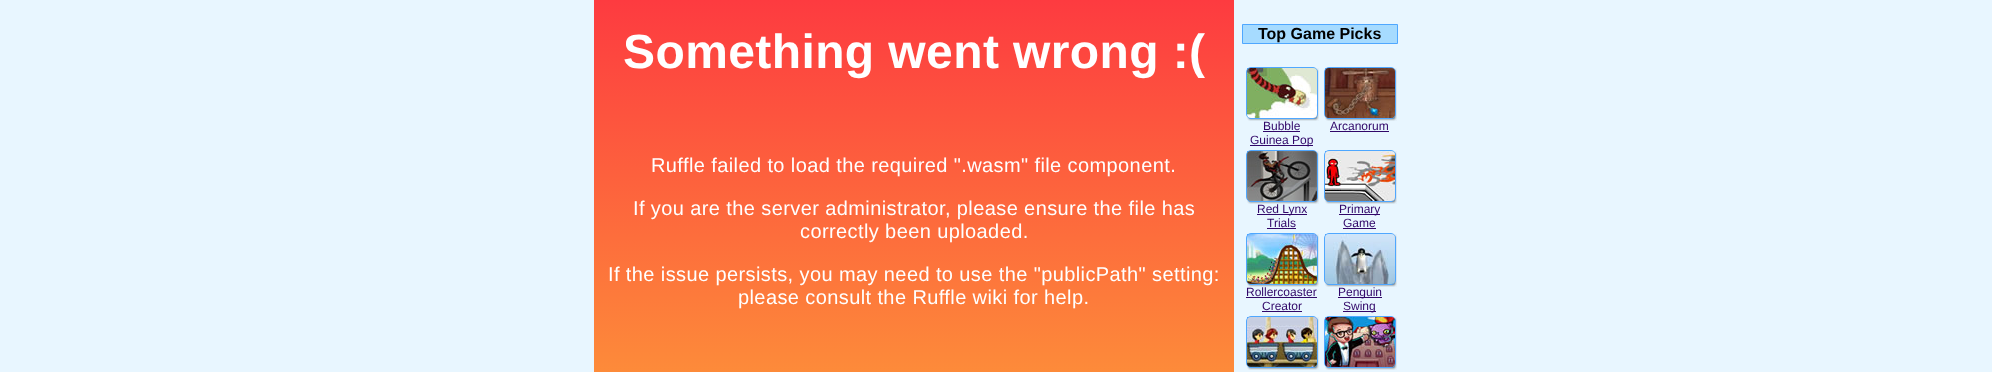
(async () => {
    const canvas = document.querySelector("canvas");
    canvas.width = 1992;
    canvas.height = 372;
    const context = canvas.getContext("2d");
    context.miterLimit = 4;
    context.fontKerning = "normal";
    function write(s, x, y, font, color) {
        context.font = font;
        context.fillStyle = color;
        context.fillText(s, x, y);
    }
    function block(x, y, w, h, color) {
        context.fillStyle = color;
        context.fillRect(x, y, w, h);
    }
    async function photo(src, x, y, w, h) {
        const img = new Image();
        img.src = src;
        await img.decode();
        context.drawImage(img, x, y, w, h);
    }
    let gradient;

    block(0, 0, 1992, 372, "rgb(232, 246, 255)");
    gradient = context.createLinearGradient(914, -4, 914, 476);
    gradient.addColorStop(0, "rgb(253, 58, 64)");
    gradient.addColorStop(1, "rgb(253, 161, 56)");
    context.fillStyle = gradient;
    context.fillRect(594, 0, 640, 372);
    context.letterSpacing = "0.4px";
    write("Something went wrong :(", 623, 68, "bold 48px Liberation Sans", "rgb(255, 255, 255)");
    write("Ruffle failed to load the required \".wasm\" file component.", 651, 172, "20px Liberation Sans", "rgb(255, 255, 255)");
    write("If you are the server administrator, please ensure the file has", 633, 215, "20px Liberation Sans", "rgb(255, 255, 255)");
    write("correctly been uploaded.", 800, 238, "20px Liberation Sans", "rgb(255, 255, 255)");
    write("If the issue persists, you may need to use the \"publicPath\" setting:", 608, 281, "20px Liberation Sans", "rgb(255, 255, 255)");
    write("please consult the Ruffle wiki for help.", 738, 304, "20px Liberation Sans", "rgb(255, 255, 255)");
    context.fillStyle = "rgb(166, 219, 255)";
    context.beginPath();
    context.rect(1242.5, 24.5, 155, 19);
    context.fill();
    context.strokeStyle = "rgb(79, 167, 255)";
    context.stroke();
    context.letterSpacing = "0px";
    write("Top Game Picks", 1258, 39, "bold 16px Liberation Sans", "rgb(0, 0, 0)");
    await photo("media/1.png", 1247, 68, 72, 53);
    context.beginPath();
    context.roundRect(1246.5, 67.5, 71, 51, 4.5);
    context.stroke();
    await photo("media/2.png", 1247, 68, 70, 50);
    write("Bubble", 1263, 130, "12px Liberation Sans", "rgb(49, 7, 105)");
    block(1263, 131, 37, 1, "rgb(49, 7, 105)");
    block(1250, 145, 63, 1, "rgb(49, 7, 105)");
    write("Guinea Pop", 1250, 144, "12px Liberation Sans", "rgb(49, 7, 105)");
    await photo("media/1.png", 1325, 68, 72, 53);
    context.beginPath();
    context.roundRect(1324.5, 67.5, 71, 51, 4.5);
    context.stroke();
    await photo("media/3.png", 1325, 68, 70, 50);
    write("Arcanorum", 1330, 130, "12px Liberation Sans", "rgb(49, 7, 105)");
    block(1330, 131, 59, 1, "rgb(49, 7, 105)");
    await photo("media/1.png", 1247, 151, 72, 53);
    context.beginPath();
    context.roundRect(1246.5, 150.5, 71, 51, 4.5);
    context.stroke();
    await photo("media/4.png", 1247, 151, 70, 50);
    block(1257, 214, 50, 1, "rgb(49, 7, 105)");
    write("Red Lynx", 1257, 213, "12px Liberation Sans", "rgb(49, 7, 105)");
    write("Trials", 1267, 227, "12px Liberation Sans", "rgb(49, 7, 105)");
    block(1267, 228, 29, 1, "rgb(49, 7, 105)");
    await photo("media/1.png", 1325, 151, 72, 53);
    context.beginPath();
    context.roundRect(1324.5, 150.5, 71, 51, 4.5);
    context.stroke();
    await photo("media/5.png", 1325, 151, 70, 50);
    block(1339, 214, 41, 1, "rgb(49, 7, 105)");
    write("Primary", 1339, 213, "12px Liberation Sans", "rgb(49, 7, 105)");
    write("Game", 1343, 227, "12px Liberation Sans", "rgb(49, 7, 105)");
    block(1343, 228, 33, 1, "rgb(49, 7, 105)");
    await photo("media/1.png", 1247, 234, 72, 53);
    context.beginPath();
    context.roundRect(1246.5, 233.5, 71, 51, 4.5);
    context.stroke();
    await photo("media/6.png", 1247, 234, 70, 50);
    write("Rollercoaster", 1246, 296, "12px Liberation Sans", "rgb(49, 7, 105)");
    block(1246, 297, 71, 1, "rgb(49, 7, 105)");
    write("Creator", 1262, 310, "12px Liberation Sans", "rgb(49, 7, 105)");
    block(1262, 311, 40, 1, "rgb(49, 7, 105)");
    await photo("media/1.png", 1325, 234, 72, 53);
    context.beginPath();
    context.roundRect(1324.5, 233.5, 71, 51, 4.5);
    context.stroke();
    await photo("media/7.png", 1325, 234, 70, 50);
    block(1338, 297, 44, 1, "rgb(49, 7, 105)");
    write("Penguin", 1338, 296, "12px Liberation Sans", "rgb(49, 7, 105)");
    block(1343, 311, 33, 1, "rgb(49, 7, 105)");
    write("Swing", 1343, 310, "12px Liberation Sans", "rgb(49, 7, 105)");
    await photo("media/1.png", 1247, 317, 72, 53);
    context.beginPath();
    context.roundRect(1246.5, 316.5, 71, 51, 4.5);
    context.stroke();
    await photo("media/8.png", 1247, 317, 70, 50);
    await photo("media/1.png", 1325, 317, 72, 53);
    context.beginPath();
    context.roundRect(1324.5, 316.5, 71, 51, 4.5);
    context.stroke();
    await photo("media/9.png", 1325, 317, 70, 50);
})();
